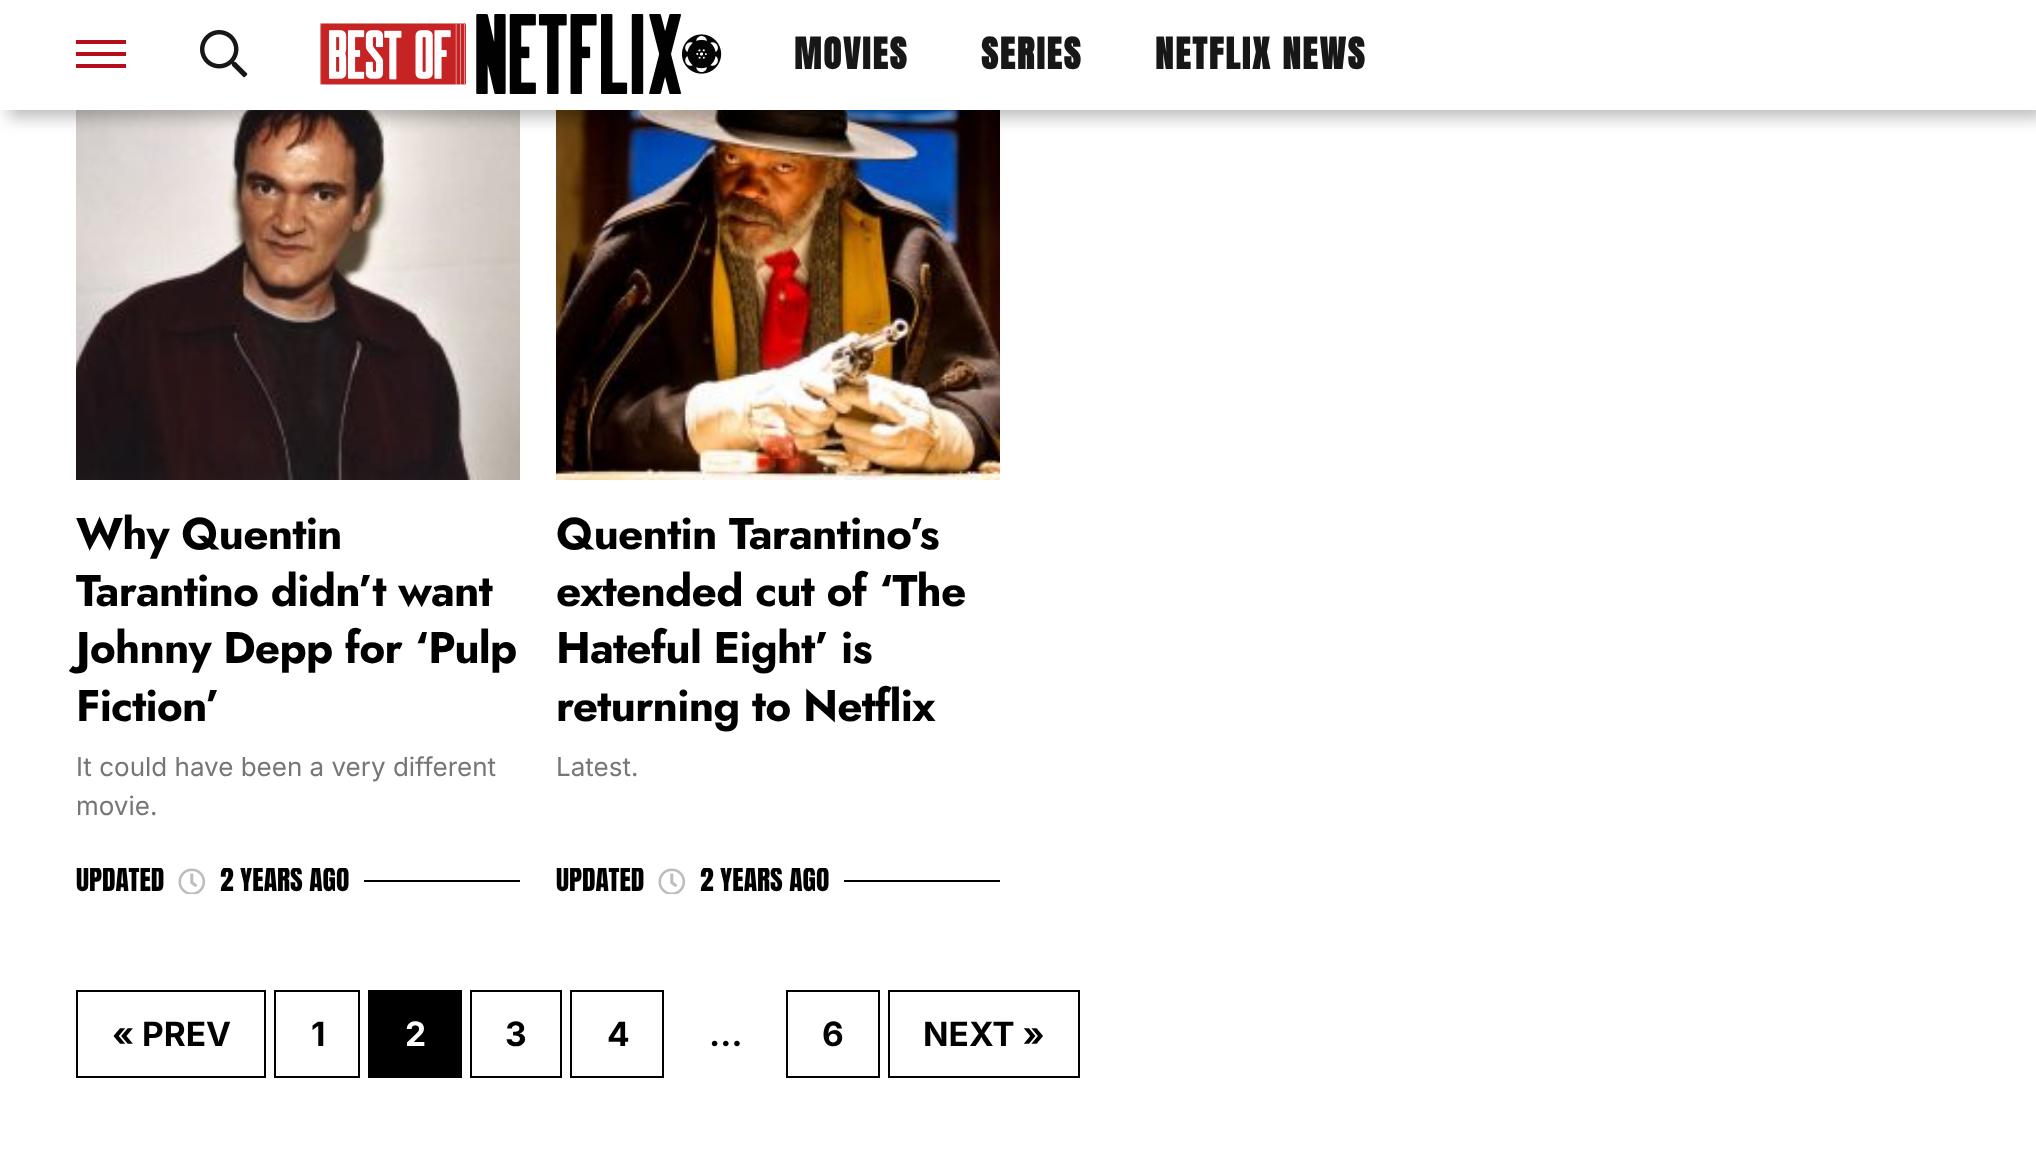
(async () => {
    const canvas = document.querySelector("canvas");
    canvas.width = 2036;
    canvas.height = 1154;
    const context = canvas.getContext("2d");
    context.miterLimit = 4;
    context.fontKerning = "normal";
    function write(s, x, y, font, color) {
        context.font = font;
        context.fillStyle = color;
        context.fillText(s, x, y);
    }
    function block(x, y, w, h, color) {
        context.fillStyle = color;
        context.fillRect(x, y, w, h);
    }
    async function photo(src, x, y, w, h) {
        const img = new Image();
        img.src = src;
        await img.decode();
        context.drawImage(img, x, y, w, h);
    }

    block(0, 0, 2036, 1154, "rgb(255, 255, 255)");
    await photo("media/3.png", 76, 110, 444, 370);
    await photo("media/5.png", 556, 110, 444, 370);
    context.fillStyle = "rgba(0, 0, 0, 0.25)";
    context.filter = "blur(8px)";
    context.beginPath();
    context.rect(8, 8, 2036, 110);
    context.fill();
    context.filter = "none";
    block(0, 0, 2036, 110, "rgb(255, 255, 255)");
    block(76, 40, 50, 4, "rgb(181, 13, 26)");
    block(76, 52, 50, 4, "rgb(181, 13, 26)");
    block(76, 64, 50, 4, "rgb(181, 13, 26)");
    await photo("media/1.png", 200, 30, 48, 48);
    await photo("media/2.png", 320, 14, 402, 80);
    context.letterSpacing = "2px";
    write("MOVIES", 794, 69, "bold 36.5px Anton", "rgb(23, 23, 23)");
    write("SERIES", 981, 69, "bold 36.5px Anton", "rgb(23, 23, 23)");
    write("NETFLIX NEWS", 1155, 69, "bold 36.5px Anton", "rgb(23, 23, 23)");
    context.letterSpacing = "-0.8px";
    write("Why Quentin", 76, 549, "bold 44.25px Jost", "rgb(0, 0, 0)");
    write("Tarantino didn’t want", 76, 606, "bold 44.25px Jost", "rgb(0, 0, 0)");
    write("Johnny Depp for ‘Pulp", 76, 663, "bold 44.25px Jost", "rgb(0, 0, 0)");
    write("Fiction’", 76, 721, "bold 44.25px Jost", "rgb(0, 0, 0)");
    context.letterSpacing = "0px";
    write("It could have been a very different", 76, 776, "26px Inter", "rgb(118, 118, 118)");
    write("movie.", 76, 815, "26px Inter", "rgb(118, 118, 118)");
    context.save();
    context.beginPath();
    context.rect(76, 868, 444, 26);
    context.clip();
    write("UPDATED", 76, 891, "27.5px Anton", "rgb(0, 0, 0)");
    context.restore();
    await photo("media/4.png", 178, 868, 28, 26);
    context.save();
    context.beginPath();
    context.rect(220, 868, 130, 26);
    context.clip();
    write("2 YEARS AGO", 220, 891, "27.5px Anton", "rgb(0, 0, 0)");
    context.restore();
    block(364, 880, 156, 2, "rgb(0, 0, 0)");
    context.letterSpacing = "-0.8px";
    write("Quentin Tarantino’s", 556, 549, "bold 44.25px Jost", "rgb(0, 0, 0)");
    write("extended cut of ‘The", 556, 606, "bold 44.25px Jost", "rgb(0, 0, 0)");
    write("Hateful Eight’ is", 556, 663, "bold 44.25px Jost", "rgb(0, 0, 0)");
    write("returning to Netflix", 556, 721, "bold 44.25px Jost", "rgb(0, 0, 0)");
    context.letterSpacing = "0px";
    write("Latest.", 556, 776, "26px Inter", "rgb(118, 118, 118)");
    context.save();
    context.beginPath();
    context.rect(556, 868, 444, 26);
    context.clip();
    write("UPDATED", 556, 891, "27.5px Anton", "rgb(0, 0, 0)");
    context.restore();
    await photo("media/4.png", 658, 868, 28, 26);
    context.save();
    context.beginPath();
    context.rect(700, 868, 130, 26);
    context.clip();
    write("2 YEARS AGO", 700, 891, "27.5px Anton", "rgb(0, 0, 0)");
    context.restore();
    block(844, 880, 156, 2, "rgb(0, 0, 0)");
    context.strokeStyle = "rgb(0, 0, 0)";
    context.lineWidth = 2;
    context.strokeRect(77, 991, 188, 86);
    write("« PREV", 112, 1046, "bold 33.5px Inter", "rgb(0, 0, 0)");
    context.strokeRect(275, 991, 84, 86);
    write("1", 311, 1046, "bold 33.5px Inter", "rgb(0, 0, 0)");
    block(368, 990, 94, 88, "rgb(0, 0, 0)");
    write("2", 405, 1046, "bold 33.5px Inter", "rgb(255, 255, 255)");
    context.strokeRect(471, 991, 90, 86);
    write("3", 505, 1046, "bold 33.5px Inter", "rgb(0, 0, 0)");
    context.strokeRect(571, 991, 92, 86);
    write("4", 607, 1046, "bold 33.5px Inter", "rgb(0, 0, 0)");
    write("…", 709, 1046, "bold 33.5px Inter", "rgb(0, 0, 0)");
    context.strokeRect(787, 991, 92, 86);
    write("6", 822, 1046, "bold 33.5px Inter", "rgb(0, 0, 0)");
    context.strokeRect(889, 991, 190, 86);
    write("NEXT »", 923, 1046, "bold 33.5px Inter", "rgb(0, 0, 0)");
})();
